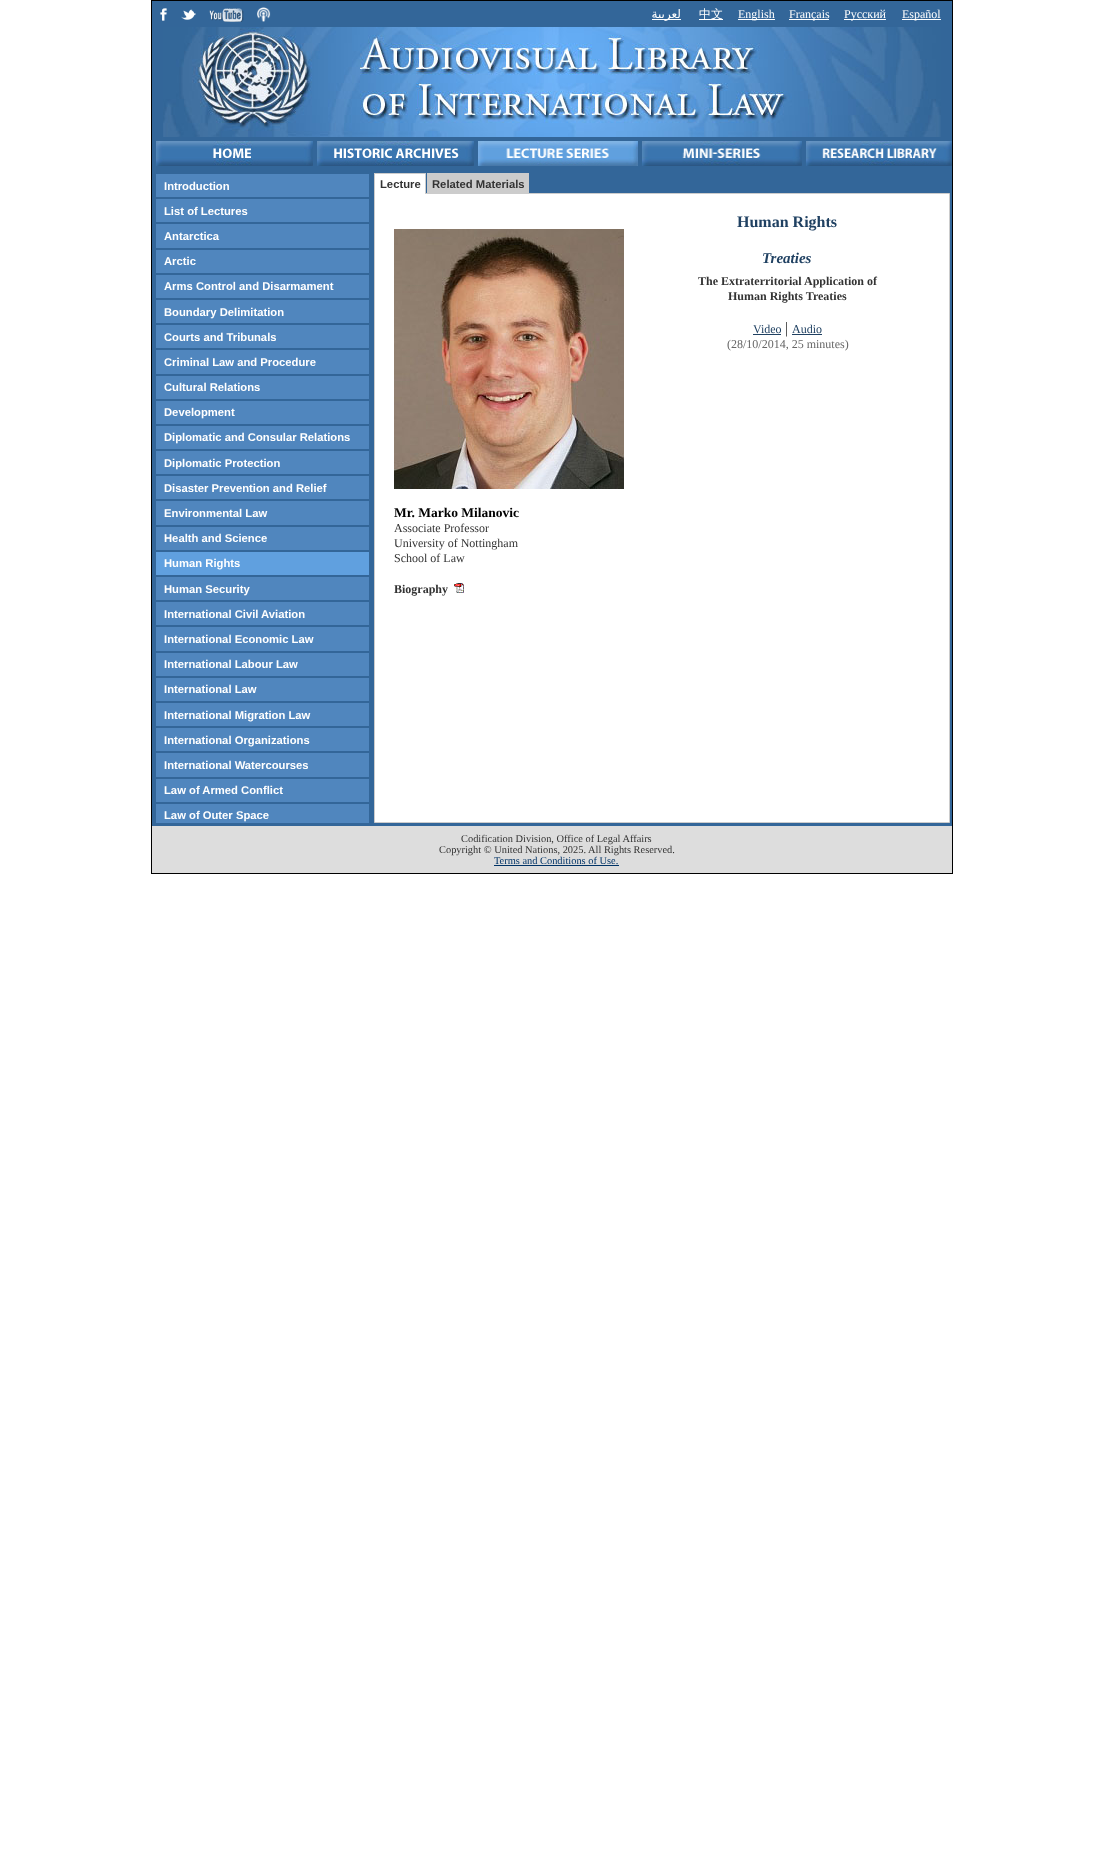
(async () => {
    const canvas = document.querySelector("canvas");
    canvas.width = 1103;
    canvas.height = 1849;
    const context = canvas.getContext("2d");
    context.miterLimit = 4;
    context.fontKerning = "normal";
    function write(s, x, y, font, color) {
        context.font = font;
        context.fillStyle = color;
        context.fillText(s, x, y);
    }
    function block(x, y, w, h, color) {
        context.fillStyle = color;
        context.fillRect(x, y, w, h);
    }
    async function photo(src, x, y, w, h) {
        const img = new Image();
        img.src = src;
        await img.decode();
        context.drawImage(img, x, y, w, h);
    }

    block(0, 0, 1103, 1849, "rgb(255, 255, 255)");
    context.strokeStyle = "rgb(0, 0, 0)";
    context.strokeRect(151.5, 0.5, 801, 873);
    block(152, 1, 800, 825, "rgb(51, 102, 153)");
    await photo("media/1.png", 160, 8, 7, 13);
    await photo("media/2.png", 181, 9, 15, 11);
    await photo("media/3.png", 209, 8, 35, 14);
    await photo("media/4.png", 257, 7, 14, 15);
    block(652, 19, 29, 1, "rgb(255, 255, 255)");
    context.direction = "rtl";
    write("لعربية", 681, 18, "12px DejaVu Sans", "rgb(255, 255, 255)");
    block(699, 19, 24, 1, "rgb(255, 255, 255)");
    context.direction = "ltr";
    write("中文", 699, 18, "500 12px WenQuanYi Zen Hei", "rgb(255, 255, 255)");
    block(738, 19, 37, 1, "rgb(255, 255, 255)");
    write("English", 738, 18, "12px Liberation Serif", "rgb(255, 255, 255)");
    block(789, 19, 40, 1, "rgb(255, 255, 255)");
    write("Français", 789, 18, "12px Liberation Serif", "rgb(255, 255, 255)");
    block(844, 19, 42, 1, "rgb(255, 255, 255)");
    write("Русский", 844, 18, "12px Liberation Serif", "rgb(255, 255, 255)");
    block(902, 19, 39, 1, "rgb(255, 255, 255)");
    write("Español", 902, 18, "12px Liberation Serif", "rgb(255, 255, 255)");
    await photo("media/5.png", 163, 27, 778, 110);
    await photo("media/6.png", 156, 141, 157, 25);
    await photo("media/7.png", 317, 141, 157, 25);
    await photo("media/8.png", 478, 141, 160, 25);
    await photo("media/9.png", 642, 141, 160, 25);
    await photo("media/10.png", 806, 141, 146, 25);
    block(156, 174, 213, 23, "rgb(80, 134, 190)");
    write("Introduction", 164, 190, "bold 11.25px Liberation Sans", "rgb(255, 255, 255)");
    block(156, 199, 213, 23, "rgb(80, 134, 190)");
    write("List of Lectures", 164, 215, "bold 11.25px Liberation Sans", "rgb(255, 255, 255)");
    block(156, 224, 213, 24, "rgb(80, 134, 190)");
    write("Antarctica", 164, 240, "bold 11.25px Liberation Sans", "rgb(255, 255, 255)");
    block(156, 250, 213, 23, "rgb(80, 134, 190)");
    write("Arctic", 164, 265, "bold 11.25px Liberation Sans", "rgb(255, 255, 255)");
    block(156, 275, 213, 23, "rgb(80, 134, 190)");
    write("Arms Control and Disarmament", 164, 290, "bold 11.25px Liberation Sans", "rgb(255, 255, 255)");
    block(156, 300, 213, 23, "rgb(80, 134, 190)");
    write("Boundary Delimitation", 164, 316, "bold 11.25px Liberation Sans", "rgb(255, 255, 255)");
    block(156, 325, 213, 23, "rgb(80, 134, 190)");
    write("Courts and Tribunals", 164, 341, "bold 11.25px Liberation Sans", "rgb(255, 255, 255)");
    block(156, 350, 213, 24, "rgb(80, 134, 190)");
    write("Criminal Law and Procedure", 164, 366, "bold 11.25px Liberation Sans", "rgb(255, 255, 255)");
    block(156, 376, 213, 23, "rgb(80, 134, 190)");
    write("Cultural Relations", 164, 391, "bold 11.25px Liberation Sans", "rgb(255, 255, 255)");
    block(156, 401, 213, 23, "rgb(80, 134, 190)");
    write("Development", 164, 416, "bold 11.25px Liberation Sans", "rgb(255, 255, 255)");
    block(156, 426, 213, 23, "rgb(80, 134, 190)");
    write("Diplomatic and Consular Relations", 164, 441, "bold 11.25px Liberation Sans", "rgb(255, 255, 255)");
    block(156, 451, 213, 23, "rgb(80, 134, 190)");
    write("Diplomatic Protection", 164, 467, "bold 11.25px Liberation Sans", "rgb(255, 255, 255)");
    block(156, 476, 213, 23, "rgb(80, 134, 190)");
    write("Disaster Prevention and Relief", 164, 492, "bold 11.25px Liberation Sans", "rgb(255, 255, 255)");
    block(156, 501, 213, 24, "rgb(80, 134, 190)");
    write("Environmental Law", 164, 517, "bold 11.25px Liberation Sans", "rgb(255, 255, 255)");
    block(156, 527, 213, 23, "rgb(80, 134, 190)");
    write("Health and Science", 164, 542, "bold 11.25px Liberation Sans", "rgb(255, 255, 255)");
    block(156, 552, 213, 23, "rgb(96, 160, 223)");
    write("Human Rights", 164, 567, "bold 11.25px Liberation Sans", "rgb(255, 255, 255)");
    block(156, 577, 213, 23, "rgb(80, 134, 190)");
    write("Human Security", 164, 593, "bold 11.25px Liberation Sans", "rgb(255, 255, 255)");
    block(156, 602, 213, 23, "rgb(80, 134, 190)");
    write("International Civil Aviation", 164, 618, "bold 11.25px Liberation Sans", "rgb(255, 255, 255)");
    block(156, 627, 213, 24, "rgb(80, 134, 190)");
    write("International Economic Law", 164, 643, "bold 11.25px Liberation Sans", "rgb(255, 255, 255)");
    block(156, 653, 213, 23, "rgb(80, 134, 190)");
    write("International Labour Law", 164, 668, "bold 11.25px Liberation Sans", "rgb(255, 255, 255)");
    block(156, 678, 213, 23, "rgb(80, 134, 190)");
    write("International Law", 164, 693, "bold 11.25px Liberation Sans", "rgb(255, 255, 255)");
    block(156, 703, 213, 23, "rgb(80, 134, 190)");
    write("International Migration Law", 164, 719, "bold 11.25px Liberation Sans", "rgb(255, 255, 255)");
    block(156, 728, 213, 23, "rgb(80, 134, 190)");
    write("International Organizations", 164, 744, "bold 11.25px Liberation Sans", "rgb(255, 255, 255)");
    block(156, 753, 213, 24, "rgb(80, 134, 190)");
    write("International Watercourses", 164, 769, "bold 11.25px Liberation Sans", "rgb(255, 255, 255)");
    block(156, 779, 213, 23, "rgb(80, 134, 190)");
    write("Law of Armed Conflict", 164, 794, "bold 11.25px Liberation Sans", "rgb(255, 255, 255)");
    block(156, 804, 213, 19, "rgb(80, 134, 190)");
    write("Law of Outer Space", 164, 819, "bold 11.25px Liberation Sans", "rgb(255, 255, 255)");
    context.beginPath();
    context.rect(374.5, 193.5, 575, 629);
    context.fill();
    context.strokeStyle = "rgb(204, 204, 204)";
    context.stroke();
    block(375, 174, 50, 20, "rgb(255, 255, 255)");
    block(374, 173, 52, 1, "rgb(204, 204, 204)");
    block(425, 173, 1, 21, "rgb(204, 204, 204)");
    block(374, 173, 1, 21, "rgb(204, 204, 204)");
    write("Lecture", 380, 188, "bold 11.25px Liberation Sans", "rgb(51, 51, 51)");
    block(427, 173, 102, 20, "rgb(204, 204, 204)");
    write("Related Materials", 432, 188, "bold 11.25px Liberation Sans", "rgb(51, 51, 51)");
    write("Human Rights", 737, 227, "bold 16px Liberation Serif", "rgb(32, 65, 98)");
    write("Treaties", 762, 263, "italic bold 15px Liberation Serif", "rgb(32, 65, 98)");
    write("The Extraterritorial Application of", 698, 285, "bold 12px Liberation Serif", "rgb(51, 51, 51)");
    write("Human Rights Treaties", 728, 300, "bold 12px Liberation Serif", "rgb(51, 51, 51)");
    write("Video", 753, 333, "12px Liberation Serif", "rgb(32, 65, 98)");
    block(753, 334, 28, 1, "rgb(32, 65, 98)");
    write("|", 785, 333, "16px Liberation Serif", "rgb(51, 51, 51)");
    write("Audio", 792, 333, "12px Liberation Serif", "rgb(32, 65, 98)");
    block(792, 334, 30, 1, "rgb(32, 65, 98)");
    write("(28/10/2014, 25 minutes)", 727, 348, "12px Liberation Serif", "rgb(102, 102, 102)");
    await photo("media/11.png", 394, 229, 230, 260);
    write("Mr. Marko Milanovic", 394, 517, "bold 13.5px Liberation Serif", "rgb(0, 0, 0)");
    write("Associate Professor", 394, 532, "12px Liberation Serif", "rgb(51, 51, 51)");
    write("University of Nottingham", 394, 547, "12px Liberation Serif", "rgb(51, 51, 51)");
    write("School of Law", 394, 562, "12px Liberation Serif", "rgb(51, 51, 51)");
    write("Biography", 394, 593, "bold 12px Liberation Serif", "rgb(51, 51, 51)");
    await photo("media/12.png", 454, 583, 10, 10);
    block(152, 826, 800, 47, "rgb(221, 221, 221)");
    write("Codification Division, Office of Legal Affairs", 461, 842, "10.4px Liberation Serif", "rgb(51, 51, 51)");
    write("Copyright © United Nations, 2025.", 439, 853, "10.4px Liberation Serif", "rgb(51, 51, 51)");
    write("All Rights Reserved.", 588, 853, "10.4px Liberation Serif", "rgb(51, 51, 51)");
    write("Terms and Conditions of Use.", 494, 864, "10.4px Liberation Serif", "rgb(0, 51, 102)");
    block(494, 865, 125, 1, "rgb(0, 51, 102)");
})();
